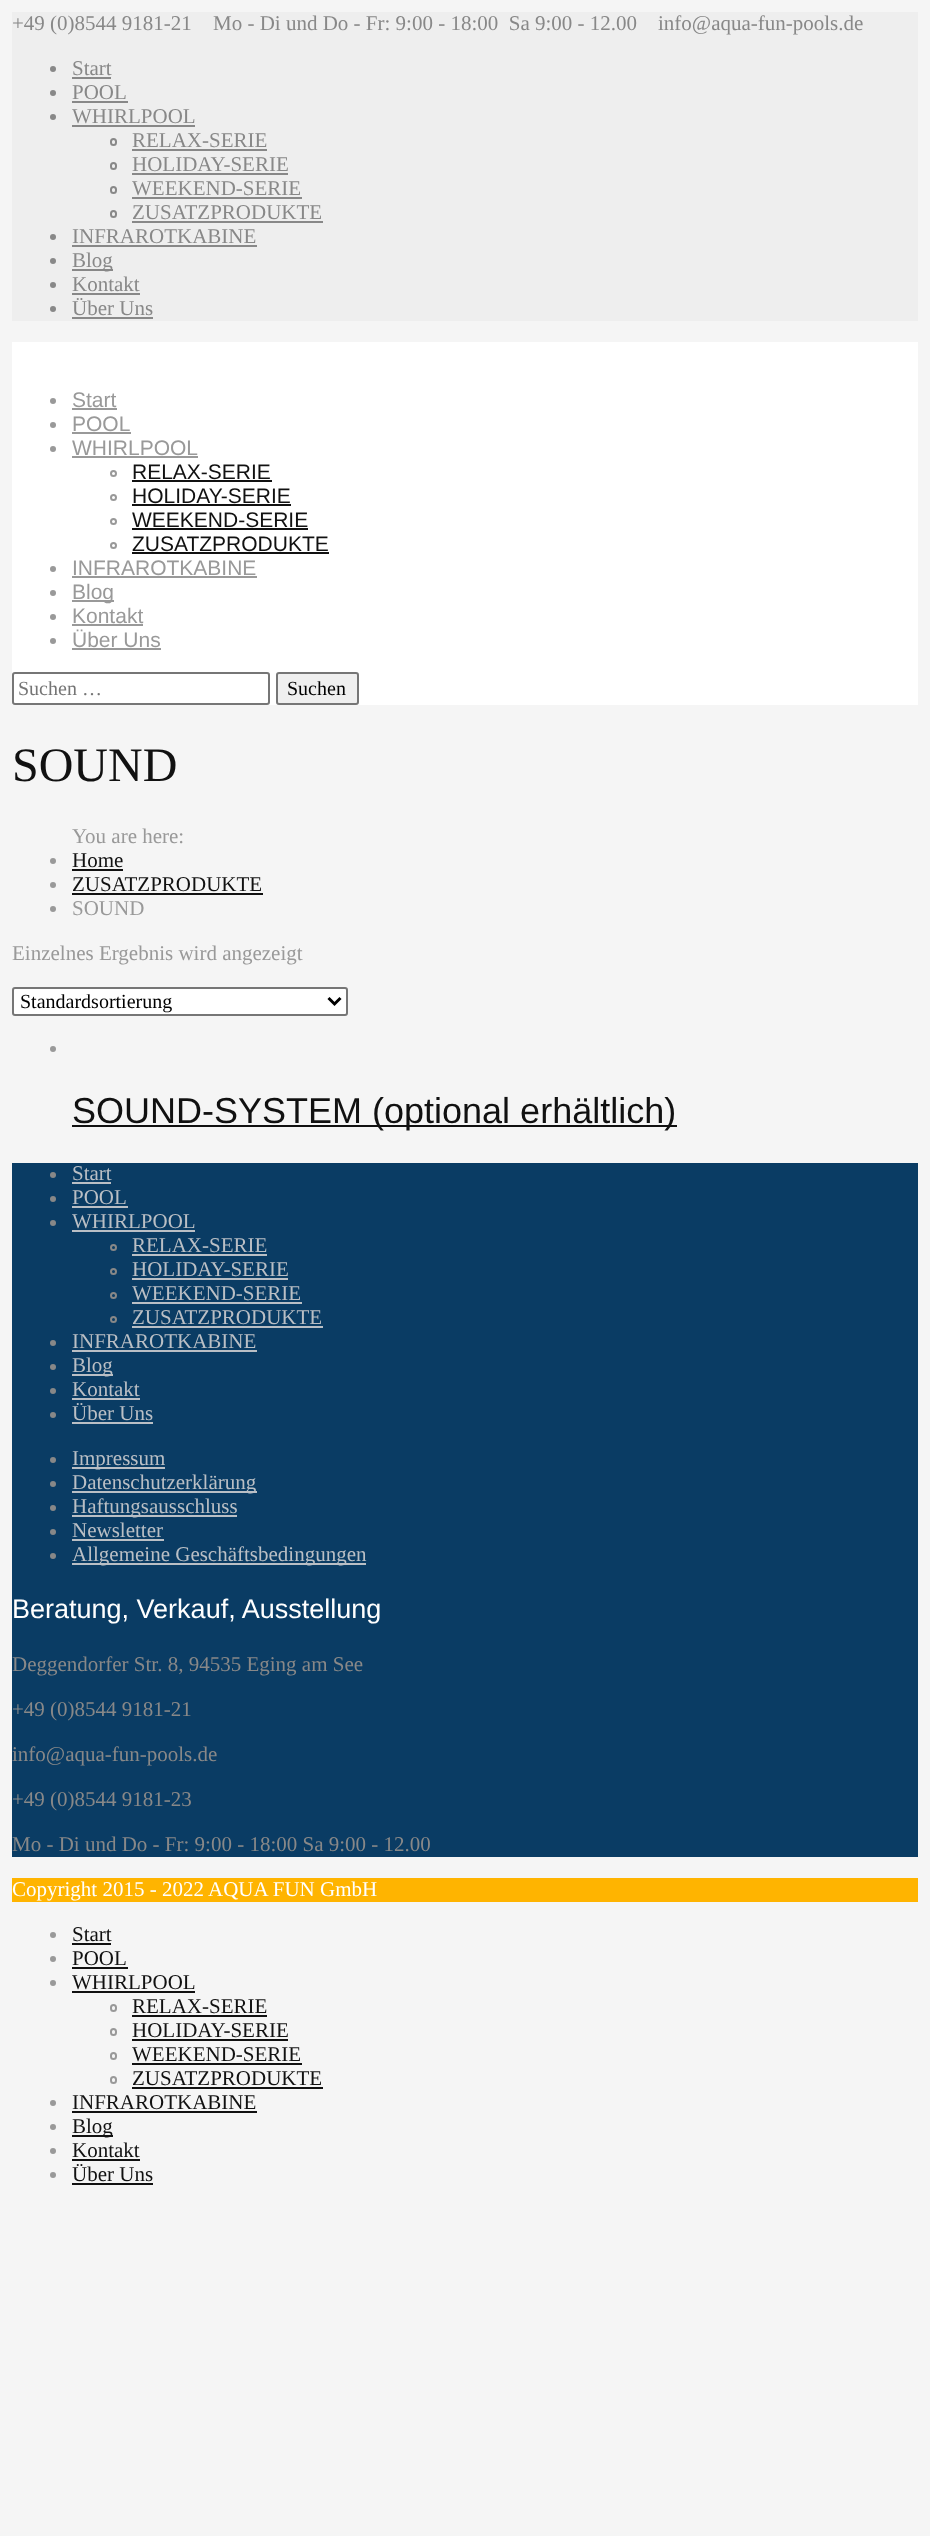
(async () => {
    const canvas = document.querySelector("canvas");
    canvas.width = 930;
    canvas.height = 2536;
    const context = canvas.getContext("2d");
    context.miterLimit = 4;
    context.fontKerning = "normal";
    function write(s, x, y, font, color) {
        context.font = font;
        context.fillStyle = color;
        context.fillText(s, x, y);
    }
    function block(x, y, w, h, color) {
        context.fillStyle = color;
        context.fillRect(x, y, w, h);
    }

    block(0, 0, 930, 2536, "rgb(245, 245, 245)");
    block(12, 12, 906, 309, "rgb(238, 238, 238)");
    write("+49 (0)8544 9181-21", 12, 30, "21px Liberation Serif", "rgb(136, 136, 136)");
    write("Mo - Di und Do - Fr: 9:00 - 18:00  Sa 9:00 - 12.00", 213, 30, "21px Liberation Serif", "rgb(136, 136, 136)");
    write("info@aqua-fun-pools.de", 658, 30, "21px Liberation Serif", "rgb(136, 136, 136)");
    context.beginPath();
    context.arc(53, 69, 3, 0, Math.PI * 2);
    context.fill();
    write("Start", 72, 75, "21px Liberation Serif", "rgb(136, 136, 136)");
    block(72, 77, 39, 2, "rgb(136, 136, 136)");
    context.beginPath();
    context.arc(53, 93, 3, 0, Math.PI * 2);
    context.fill();
    write("POOL", 72, 99, "21px Liberation Serif", "rgb(136, 136, 136)");
    block(72, 101, 56, 2, "rgb(136, 136, 136)");
    context.beginPath();
    context.arc(53, 117, 3, 0, Math.PI * 2);
    context.fill();
    write("WHIRLPOOL", 72, 123, "21px Liberation Serif", "rgb(136, 136, 136)");
    block(72, 125, 123, 2, "rgb(136, 136, 136)");
    context.beginPath();
    context.roundRect(111, 139, 5, 6, 2.5);
    context.strokeStyle = "rgb(136, 136, 136)";
    context.lineWidth = 2;
    context.stroke();
    write("RELAX-SERIE", 132, 147, "21px Liberation Serif", "rgb(136, 136, 136)");
    block(132, 149, 135, 2, "rgb(136, 136, 136)");
    context.beginPath();
    context.roundRect(111, 163, 5, 6, 2.5);
    context.stroke();
    write("HOLIDAY-SERIE", 132, 171, "21px Liberation Serif", "rgb(136, 136, 136)");
    block(132, 173, 156, 2, "rgb(136, 136, 136)");
    context.beginPath();
    context.roundRect(111, 187, 5, 6, 2.5);
    context.stroke();
    write("WEEKEND-SERIE", 132, 195, "21px Liberation Serif", "rgb(136, 136, 136)");
    block(132, 197, 170, 2, "rgb(136, 136, 136)");
    context.beginPath();
    context.roundRect(111, 211, 5, 6, 2.5);
    context.stroke();
    write("ZUSATZPRODUKTE", 132, 219, "21px Liberation Serif", "rgb(136, 136, 136)");
    block(132, 221, 191, 2, "rgb(136, 136, 136)");
    context.beginPath();
    context.arc(53, 237, 3, 0, Math.PI * 2);
    context.fill();
    write("INFRAROTKABINE", 72, 243, "21px Liberation Serif", "rgb(136, 136, 136)");
    block(72, 245, 185, 2, "rgb(136, 136, 136)");
    context.beginPath();
    context.arc(53, 261, 3, 0, Math.PI * 2);
    context.fill();
    block(72, 269, 41, 2, "rgb(136, 136, 136)");
    write("Blog", 72, 267, "21px Liberation Serif", "rgb(136, 136, 136)");
    context.beginPath();
    context.arc(53, 285, 3, 0, Math.PI * 2);
    context.fill();
    write("Kontakt", 72, 291, "21px Liberation Serif", "rgb(136, 136, 136)");
    block(72, 293, 68, 2, "rgb(136, 136, 136)");
    context.beginPath();
    context.arc(53, 309, 3, 0, Math.PI * 2);
    context.fill();
    write("Über Uns", 72, 315, "21px Liberation Serif", "rgb(136, 136, 136)");
    block(72, 317, 81, 2, "rgb(136, 136, 136)");
    block(12, 342, 906, 363, "rgb(255, 255, 255)");
    context.fillStyle = "rgb(153, 153, 153)";
    context.beginPath();
    context.arc(53, 401, 3, 0, Math.PI * 2);
    context.fill();
    write("Start", 72, 407, "21px Liberation Sans", "rgb(153, 153, 153)");
    block(72, 408, 45, 2, "rgb(153, 153, 153)");
    context.beginPath();
    context.arc(53, 425, 3, 0, Math.PI * 2);
    context.fill();
    write("POOL", 72, 431, "21px Liberation Sans", "rgb(153, 153, 153)");
    block(72, 432, 59, 2, "rgb(153, 153, 153)");
    context.beginPath();
    context.arc(53, 449, 3, 0, Math.PI * 2);
    context.fill();
    write("WHIRLPOOL", 72, 455, "21px Liberation Sans", "rgb(153, 153, 153)");
    block(72, 456, 126, 2, "rgb(153, 153, 153)");
    context.beginPath();
    context.arc(113.5, 473.5, 2.5, 0, Math.PI * 2);
    context.strokeStyle = "rgb(153, 153, 153)";
    context.stroke();
    write("RELAX-SERIE", 132, 479, "21px Liberation Sans", "rgb(17, 17, 17)");
    block(132, 480, 140, 2, "rgb(17, 17, 17)");
    context.beginPath();
    context.arc(113.5, 497.5, 2.5, 0, Math.PI * 2);
    context.stroke();
    write("HOLIDAY-SERIE", 132, 503, "21px Liberation Sans", "rgb(17, 17, 17)");
    block(132, 504, 159, 2, "rgb(17, 17, 17)");
    context.beginPath();
    context.arc(113.5, 521.5, 2.5, 0, Math.PI * 2);
    context.stroke();
    write("WEEKEND-SERIE", 132, 527, "21px Liberation Sans", "rgb(17, 17, 17)");
    block(132, 528, 176, 2, "rgb(17, 17, 17)");
    context.beginPath();
    context.arc(113.5, 545.5, 2.5, 0, Math.PI * 2);
    context.stroke();
    write("ZUSATZPRODUKTE", 132, 551, "21px Liberation Sans", "rgb(17, 17, 17)");
    block(132, 552, 197, 2, "rgb(17, 17, 17)");
    context.fillStyle = "rgb(153, 153, 153)";
    context.beginPath();
    context.arc(53, 569, 3, 0, Math.PI * 2);
    context.fill();
    write("INFRAROTKABINE", 72, 575, "21px Liberation Sans", "rgb(153, 153, 153)");
    block(72, 576, 185, 2, "rgb(153, 153, 153)");
    context.beginPath();
    context.arc(53, 593, 3, 0, Math.PI * 2);
    context.fill();
    block(72, 600, 42, 2, "rgb(153, 153, 153)");
    write("Blog", 72, 599, "21px Liberation Sans", "rgb(153, 153, 153)");
    context.beginPath();
    context.arc(53, 617, 3, 0, Math.PI * 2);
    context.fill();
    write("Kontakt", 72, 623, "21px Liberation Sans", "rgb(153, 153, 153)");
    block(72, 624, 71, 2, "rgb(153, 153, 153)");
    context.beginPath();
    context.arc(53, 641, 3, 0, Math.PI * 2);
    context.fill();
    write("Über Uns", 72, 647, "21px Liberation Sans", "rgb(153, 153, 153)");
    block(72, 648, 89, 2, "rgb(153, 153, 153)");
    context.beginPath();
    context.roundRect(13, 673, 256, 31, 2);
    context.strokeStyle = "rgb(118, 118, 118)";
    context.stroke();
    write("Suchen …", 18, 695, "20px Liberation Serif", "rgb(117, 117, 117)");
    context.fillStyle = "rgb(239, 239, 239)";
    context.beginPath();
    context.roundRect(277, 673, 81, 31, 2);
    context.fill();
    context.stroke();
    write("Suchen", 287, 695, "20px Liberation Serif", "rgb(0, 0, 0)");
    write("SOUND", 12, 781, "48px Liberation Serif", "rgb(17, 17, 17)");
    write("You are here:", 72, 843, "21px Liberation Serif", "rgb(153, 153, 153)");
    context.beginPath();
    context.arc(53, 861, 3, 0, Math.PI * 2);
    context.fill();
    write("Home", 72, 867, "21px Liberation Serif", "rgb(17, 17, 17)");
    block(72, 869, 51, 2, "rgb(17, 17, 17)");
    context.fillStyle = "rgb(153, 153, 153)";
    context.beginPath();
    context.arc(53, 885, 3, 0, Math.PI * 2);
    context.fill();
    write("ZUSATZPRODUKTE", 72, 891, "21px Liberation Serif", "rgb(17, 17, 17)");
    block(72, 893, 191, 2, "rgb(17, 17, 17)");
    context.fillStyle = "rgb(153, 153, 153)";
    context.beginPath();
    context.arc(53, 909, 3, 0, Math.PI * 2);
    context.fill();
    write("SOUND", 72, 915, "21px Liberation Serif", "rgb(153, 153, 153)");
    write("Einzelnes Ergebnis wird angezeigt", 12, 960, "21px Liberation Serif", "rgb(153, 153, 153)");
    context.fillStyle = "rgb(255, 255, 255)";
    context.beginPath();
    context.roundRect(13, 988, 334, 27, 2);
    context.fill();
    context.stroke();
    context.beginPath();
    context.moveTo(328.5, 998);
    context.lineTo(334.5, 1004);
    context.lineTo(340.5, 998);
    context.strokeStyle = "rgb(0, 0, 0)";
    context.lineWidth = 3;
    context.stroke();
    write("Standardsortierung", 20, 1008, "20px Liberation Serif", "rgb(0, 0, 0)");
    context.fillStyle = "rgb(153, 153, 153)";
    context.beginPath();
    context.arc(53, 1049, 3, 0, Math.PI * 2);
    context.fill();
    block(72, 1125, 605, 2, "rgb(17, 17, 17)");
    write("SOUND-SYSTEM (optional erhältlich)", 72, 1123, "36px Liberation Sans", "rgb(17, 17, 17)");
    block(12, 1163, 906, 694, "rgb(10, 60, 100)");
    context.fillStyle = "rgb(136, 136, 136)";
    context.beginPath();
    context.arc(53, 1175, 3, 0, Math.PI * 2);
    context.fill();
    write("Start", 72, 1180, "21px Liberation Serif", "rgb(186, 191, 197)");
    block(72, 1182, 39, 2, "rgb(186, 191, 197)");
    context.fillStyle = "rgb(136, 136, 136)";
    context.beginPath();
    context.arc(53, 1199, 3, 0, Math.PI * 2);
    context.fill();
    write("POOL", 72, 1204, "21px Liberation Serif", "rgb(186, 191, 197)");
    block(72, 1206, 56, 2, "rgb(186, 191, 197)");
    context.fillStyle = "rgb(136, 136, 136)";
    context.beginPath();
    context.arc(53, 1223, 3, 0, Math.PI * 2);
    context.fill();
    write("WHIRLPOOL", 72, 1228, "21px Liberation Serif", "rgb(186, 191, 197)");
    block(72, 1230, 123, 2, "rgb(186, 191, 197)");
    context.beginPath();
    context.arc(113.5, 1247.5, 2.5, 0, Math.PI * 2);
    context.strokeStyle = "rgb(136, 136, 136)";
    context.lineWidth = 2;
    context.stroke();
    write("RELAX-SERIE", 132, 1252, "21px Liberation Serif", "rgb(186, 191, 197)");
    block(132, 1254, 135, 2, "rgb(186, 191, 197)");
    context.beginPath();
    context.arc(113.5, 1271.5, 2.5, 0, Math.PI * 2);
    context.stroke();
    write("HOLIDAY-SERIE", 132, 1276, "21px Liberation Serif", "rgb(186, 191, 197)");
    block(132, 1278, 156, 2, "rgb(186, 191, 197)");
    context.beginPath();
    context.arc(113.5, 1295.5, 2.5, 0, Math.PI * 2);
    context.stroke();
    write("WEEKEND-SERIE", 132, 1300, "21px Liberation Serif", "rgb(186, 191, 197)");
    block(132, 1302, 170, 2, "rgb(186, 191, 197)");
    context.beginPath();
    context.arc(113.5, 1319.5, 2.5, 0, Math.PI * 2);
    context.stroke();
    write("ZUSATZPRODUKTE", 132, 1324, "21px Liberation Serif", "rgb(186, 191, 197)");
    block(132, 1326, 191, 2, "rgb(186, 191, 197)");
    context.fillStyle = "rgb(136, 136, 136)";
    context.beginPath();
    context.arc(53, 1343, 3, 0, Math.PI * 2);
    context.fill();
    write("INFRAROTKABINE", 72, 1348, "21px Liberation Serif", "rgb(186, 191, 197)");
    block(72, 1350, 185, 2, "rgb(186, 191, 197)");
    context.fillStyle = "rgb(136, 136, 136)";
    context.beginPath();
    context.arc(53, 1367, 3, 0, Math.PI * 2);
    context.fill();
    block(72, 1374, 41, 2, "rgb(186, 191, 197)");
    write("Blog", 72, 1372, "21px Liberation Serif", "rgb(186, 191, 197)");
    context.fillStyle = "rgb(136, 136, 136)";
    context.beginPath();
    context.arc(53, 1391, 3, 0, Math.PI * 2);
    context.fill();
    write("Kontakt", 72, 1396, "21px Liberation Serif", "rgb(186, 191, 197)");
    block(72, 1398, 68, 2, "rgb(186, 191, 197)");
    context.fillStyle = "rgb(136, 136, 136)";
    context.beginPath();
    context.arc(53, 1415, 3, 0, Math.PI * 2);
    context.fill();
    write("Über Uns", 72, 1420, "21px Liberation Serif", "rgb(186, 191, 197)");
    block(72, 1422, 81, 2, "rgb(186, 191, 197)");
    context.fillStyle = "rgb(136, 136, 136)";
    context.beginPath();
    context.arc(53, 1460, 3, 0, Math.PI * 2);
    context.fill();
    block(72, 1467, 93, 2, "rgb(186, 191, 197)");
    write("Impressum", 72, 1465, "21px Liberation Serif", "rgb(186, 191, 197)");
    context.fillStyle = "rgb(136, 136, 136)";
    context.beginPath();
    context.arc(53, 1484, 3, 0, Math.PI * 2);
    context.fill();
    block(72, 1491, 185, 2, "rgb(186, 191, 197)");
    write("Datenschutzerklärung", 72, 1489, "21px Liberation Serif", "rgb(186, 191, 197)");
    context.fillStyle = "rgb(136, 136, 136)";
    context.beginPath();
    context.arc(53, 1508, 3, 0, Math.PI * 2);
    context.fill();
    block(72, 1515, 165, 2, "rgb(186, 191, 197)");
    write("Haftungsausschluss", 72, 1513, "21px Liberation Serif", "rgb(186, 191, 197)");
    context.fillStyle = "rgb(136, 136, 136)";
    context.beginPath();
    context.arc(53, 1532, 3, 0, Math.PI * 2);
    context.fill();
    write("Newsletter", 72, 1537, "21px Liberation Serif", "rgb(186, 191, 197)");
    block(72, 1539, 92, 2, "rgb(186, 191, 197)");
    context.fillStyle = "rgb(136, 136, 136)";
    context.beginPath();
    context.arc(53, 1556, 3, 0, Math.PI * 2);
    context.fill();
    block(72, 1563, 294, 2, "rgb(186, 191, 197)");
    write("Allgemeine Geschäftsbedingungen", 72, 1561, "21px Liberation Serif", "rgb(186, 191, 197)");
    write("Beratung, Verkauf, Ausstellung", 12, 1618, "27px Liberation Sans", "rgb(255, 255, 255)");
    write("Deggendorfer Str. 8, 94535 Eging am See", 12, 1671, "21px Liberation Serif", "rgb(136, 136, 136)");
    write("+49 (0)8544 9181-21", 12, 1716, "21px Liberation Serif", "rgb(136, 136, 136)");
    write("info@aqua-fun-pools.de", 12, 1761, "21px Liberation Serif", "rgb(136, 136, 136)");
    write("+49 (0)8544 9181-23", 12, 1806, "21px Liberation Serif", "rgb(136, 136, 136)");
    write("Mo - Di und Do - Fr: 9:00 - 18:00 Sa 9:00 - 12.00", 12, 1851, "21px Liberation Serif", "rgb(136, 136, 136)");
    block(12, 1878, 906, 24, "rgb(255, 180, 0)");
    write("Copyright 2015 - 2022 AQUA FUN GmbH", 12, 1896, "21px Liberation Serif", "rgb(255, 255, 255)");
    context.fillStyle = "rgb(153, 153, 153)";
    context.beginPath();
    context.arc(53, 1935, 3, 0, Math.PI * 2);
    context.fill();
    write("Start", 72, 1941, "21px Liberation Serif", "rgb(17, 17, 17)");
    block(72, 1943, 39, 2, "rgb(17, 17, 17)");
    context.fillStyle = "rgb(153, 153, 153)";
    context.beginPath();
    context.arc(53, 1959, 3, 0, Math.PI * 2);
    context.fill();
    write("POOL", 72, 1965, "21px Liberation Serif", "rgb(17, 17, 17)");
    block(72, 1967, 56, 2, "rgb(17, 17, 17)");
    context.fillStyle = "rgb(153, 153, 153)";
    context.beginPath();
    context.arc(53, 1983, 3, 0, Math.PI * 2);
    context.fill();
    write("WHIRLPOOL", 72, 1989, "21px Liberation Serif", "rgb(17, 17, 17)");
    block(72, 1991, 123, 2, "rgb(17, 17, 17)");
    context.beginPath();
    context.roundRect(111, 2005, 5, 6, 2.5);
    context.strokeStyle = "rgb(153, 153, 153)";
    context.stroke();
    write("RELAX-SERIE", 132, 2013, "21px Liberation Serif", "rgb(17, 17, 17)");
    block(132, 2015, 135, 2, "rgb(17, 17, 17)");
    context.beginPath();
    context.roundRect(111, 2029, 5, 6, 2.5);
    context.stroke();
    write("HOLIDAY-SERIE", 132, 2037, "21px Liberation Serif", "rgb(17, 17, 17)");
    block(132, 2039, 156, 2, "rgb(17, 17, 17)");
    context.beginPath();
    context.roundRect(111, 2053, 5, 6, 2.5);
    context.stroke();
    write("WEEKEND-SERIE", 132, 2061, "21px Liberation Serif", "rgb(17, 17, 17)");
    block(132, 2063, 170, 2, "rgb(17, 17, 17)");
    context.beginPath();
    context.roundRect(111, 2077, 5, 6, 2.5);
    context.stroke();
    write("ZUSATZPRODUKTE", 132, 2085, "21px Liberation Serif", "rgb(17, 17, 17)");
    block(132, 2087, 191, 2, "rgb(17, 17, 17)");
    context.fillStyle = "rgb(153, 153, 153)";
    context.beginPath();
    context.arc(53, 2103, 3, 0, Math.PI * 2);
    context.fill();
    write("INFRAROTKABINE", 72, 2109, "21px Liberation Serif", "rgb(17, 17, 17)");
    block(72, 2111, 185, 2, "rgb(17, 17, 17)");
    context.fillStyle = "rgb(153, 153, 153)";
    context.beginPath();
    context.arc(53, 2127, 3, 0, Math.PI * 2);
    context.fill();
    block(72, 2135, 41, 2, "rgb(17, 17, 17)");
    write("Blog", 72, 2133, "21px Liberation Serif", "rgb(17, 17, 17)");
    context.fillStyle = "rgb(153, 153, 153)";
    context.beginPath();
    context.arc(53, 2151, 3, 0, Math.PI * 2);
    context.fill();
    write("Kontakt", 72, 2157, "21px Liberation Serif", "rgb(17, 17, 17)");
    block(72, 2159, 68, 2, "rgb(17, 17, 17)");
    context.fillStyle = "rgb(153, 153, 153)";
    context.beginPath();
    context.arc(53, 2175, 3, 0, Math.PI * 2);
    context.fill();
    write("Über Uns", 72, 2181, "21px Liberation Serif", "rgb(17, 17, 17)");
    block(72, 2183, 81, 2, "rgb(17, 17, 17)");
})();
